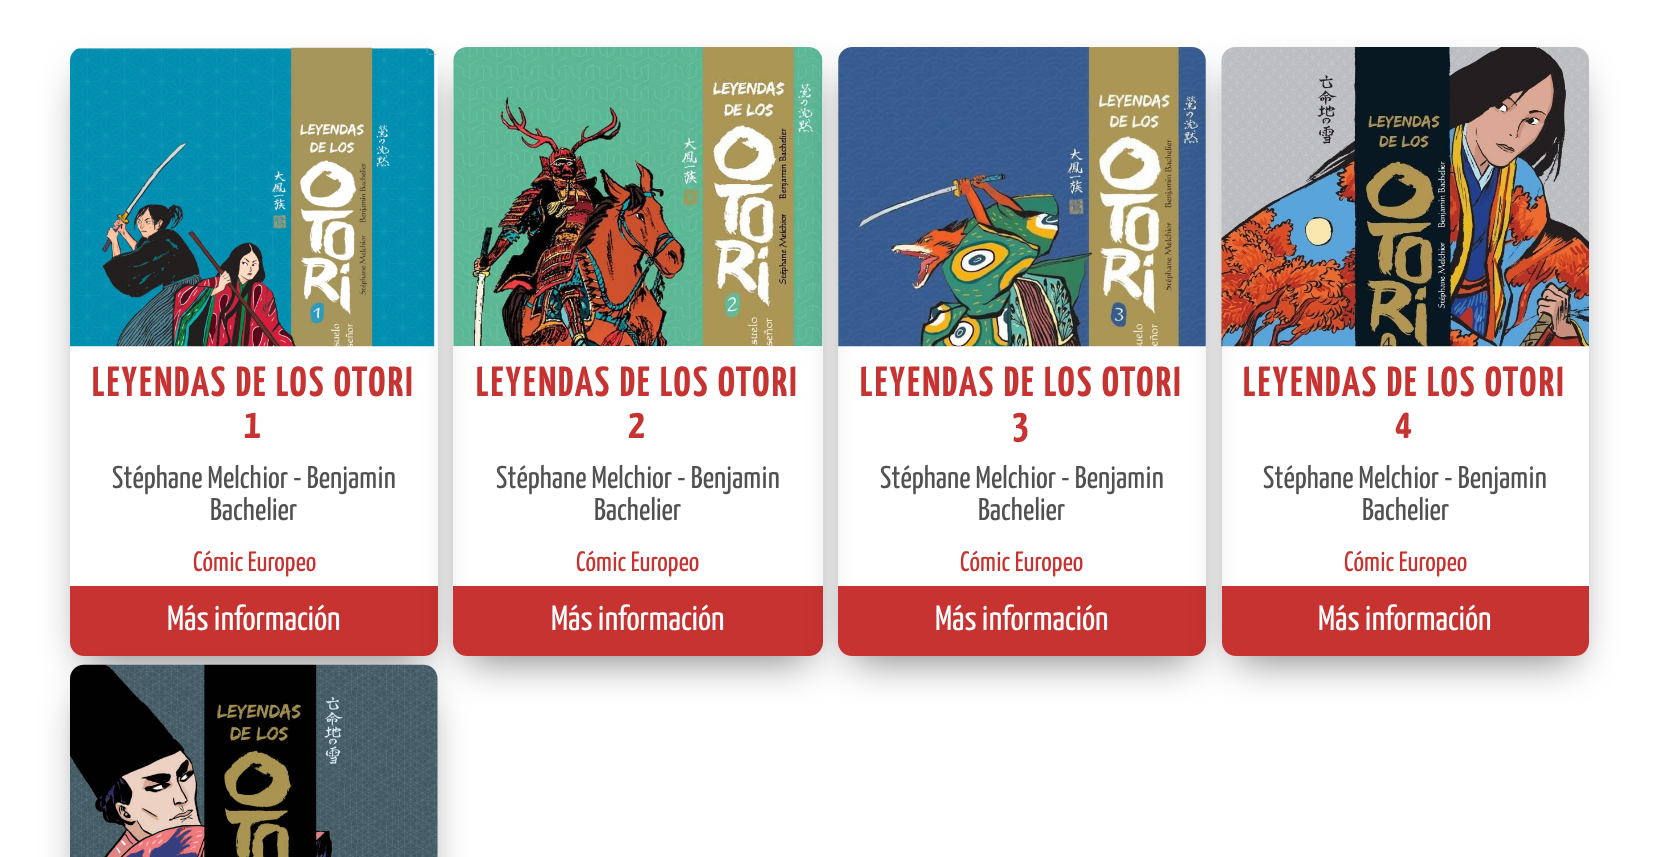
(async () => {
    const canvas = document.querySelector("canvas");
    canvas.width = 1659;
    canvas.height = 857;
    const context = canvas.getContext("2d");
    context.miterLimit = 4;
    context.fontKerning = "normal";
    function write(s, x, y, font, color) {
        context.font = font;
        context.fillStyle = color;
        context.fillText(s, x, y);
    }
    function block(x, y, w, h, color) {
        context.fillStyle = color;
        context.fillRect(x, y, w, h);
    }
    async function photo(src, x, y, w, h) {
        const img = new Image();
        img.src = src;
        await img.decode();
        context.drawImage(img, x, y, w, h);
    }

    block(0, 0, 1659, 857, "rgb(255, 255, 255)");
    context.save();
    context.beginPath();
    context.moveTo(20, 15);
    context.lineTo(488, 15);
    context.lineTo(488, 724);
    context.lineTo(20, 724);
    context.closePath();
    context.moveTo(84, 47);
    context.lineTo(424, 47);
    context.bezierCurveTo(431.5, 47, 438, 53.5, 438, 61);
    context.lineTo(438, 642);
    context.bezierCurveTo(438, 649.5, 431.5, 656, 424, 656);
    context.lineTo(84, 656);
    context.bezierCurveTo(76.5, 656, 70, 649.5, 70, 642);
    context.lineTo(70, 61);
    context.bezierCurveTo(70, 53.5, 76.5, 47, 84, 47);
    context.closePath();
    context.clip("evenodd");
    context.fillStyle = "rgba(0, 0, 0, 0.5)";
    context.filter = "blur(21px)";
    context.beginPath();
    context.rect(84, 79, 340, 581);
    context.fill();
    context.filter = "none";
    context.restore();
    await photo("media/1.png", 70, 47, 368, 300);
    context.letterSpacing = "2.25px";
    write("LEYENDAS DE LOS OTORI", 92, 396, "bold 42px Yanone Kaffeesatz", "rgb(199, 51, 48)");
    write("1", 244, 438, "bold 42px Yanone Kaffeesatz", "rgb(199, 51, 48)");
    context.letterSpacing = "0px";
    write("Stéphane Melchior - Benjamin", 112, 488, "31.5px Yanone Kaffeesatz", "rgb(81, 81, 81)");
    write("Bachelier", 210, 520, "31.5px Yanone Kaffeesatz", "rgb(81, 81, 81)");
    write("Cómic Europeo", 193, 571, "28px Yanone Kaffeesatz", "rgb(199, 51, 48)");
    context.beginPath();
    context.roundRect(70, 586, 368, 70, [0, 0, 14, 14]);
    context.fill();
    write("Más información", 167, 630, "35px Yanone Kaffeesatz", "rgb(255, 255, 255)");
    context.save();
    context.beginPath();
    context.moveTo(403, 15);
    context.lineTo(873, 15);
    context.lineTo(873, 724);
    context.lineTo(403, 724);
    context.closePath();
    context.moveTo(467, 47);
    context.lineTo(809, 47);
    context.bezierCurveTo(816.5, 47, 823, 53.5, 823, 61);
    context.lineTo(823, 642);
    context.bezierCurveTo(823, 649.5, 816.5, 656, 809, 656);
    context.lineTo(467, 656);
    context.bezierCurveTo(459.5, 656, 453, 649.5, 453, 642);
    context.lineTo(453, 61);
    context.bezierCurveTo(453, 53.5, 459.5, 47, 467, 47);
    context.closePath();
    context.clip("evenodd");
    context.fillStyle = "rgba(0, 0, 0, 0.5)";
    context.filter = "blur(21px)";
    context.beginPath();
    context.rect(467, 79, 342, 581);
    context.fill();
    context.filter = "none";
    context.restore();
    await photo("media/2.png", 453, 47, 370, 300);
    context.letterSpacing = "2.25px";
    write("LEYENDAS DE LOS OTORI", 476, 396, "bold 42px Yanone Kaffeesatz", "rgb(199, 51, 48)");
    write("2", 628, 438, "bold 42px Yanone Kaffeesatz", "rgb(199, 51, 48)");
    context.letterSpacing = "0px";
    write("Stéphane Melchior - Benjamin", 496, 488, "31.5px Yanone Kaffeesatz", "rgb(81, 81, 81)");
    write("Bachelier", 594, 520, "31.5px Yanone Kaffeesatz", "rgb(81, 81, 81)");
    write("Cómic Europeo", 576, 571, "28px Yanone Kaffeesatz", "rgb(199, 51, 48)");
    context.beginPath();
    context.roundRect(453, 586, 370, 70, [0, 0, 14, 14]);
    context.fill();
    write("Más información", 551, 630, "35px Yanone Kaffeesatz", "rgb(255, 255, 255)");
    context.save();
    context.beginPath();
    context.moveTo(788, 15);
    context.lineTo(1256, 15);
    context.lineTo(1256, 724);
    context.lineTo(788, 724);
    context.closePath();
    context.moveTo(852, 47);
    context.lineTo(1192, 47);
    context.bezierCurveTo(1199.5, 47, 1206, 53.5, 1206, 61);
    context.lineTo(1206, 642);
    context.bezierCurveTo(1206, 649.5, 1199.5, 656, 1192, 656);
    context.lineTo(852, 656);
    context.bezierCurveTo(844.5, 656, 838, 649.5, 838, 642);
    context.lineTo(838, 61);
    context.bezierCurveTo(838, 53.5, 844.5, 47, 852, 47);
    context.closePath();
    context.clip("evenodd");
    context.fillStyle = "rgba(0, 0, 0, 0.5)";
    context.filter = "blur(21px)";
    context.beginPath();
    context.rect(852, 79, 340, 581);
    context.fill();
    context.filter = "none";
    context.restore();
    await photo("media/3.png", 838, 47, 368, 300);
    context.letterSpacing = "2.25px";
    write("LEYENDAS DE LOS OTORI", 860, 396, "bold 42px Yanone Kaffeesatz", "rgb(199, 51, 48)");
    write("3", 1012, 438, "bold 42px Yanone Kaffeesatz", "rgb(199, 51, 48)");
    context.letterSpacing = "0px";
    write("Stéphane Melchior - Benjamin", 880, 488, "31.5px Yanone Kaffeesatz", "rgb(81, 81, 81)");
    write("Bachelier", 978, 520, "31.5px Yanone Kaffeesatz", "rgb(81, 81, 81)");
    write("Cómic Europeo", 960, 571, "28px Yanone Kaffeesatz", "rgb(199, 51, 48)");
    context.beginPath();
    context.roundRect(838, 586, 368, 70, [0, 0, 14, 14]);
    context.fill();
    write("Más información", 935, 630, "35px Yanone Kaffeesatz", "rgb(255, 255, 255)");
    context.save();
    context.beginPath();
    context.moveTo(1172, 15);
    context.lineTo(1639, 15);
    context.lineTo(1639, 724);
    context.lineTo(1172, 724);
    context.closePath();
    context.moveTo(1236, 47);
    context.lineTo(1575, 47);
    context.bezierCurveTo(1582.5, 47, 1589, 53.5, 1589, 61);
    context.lineTo(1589, 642);
    context.bezierCurveTo(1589, 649.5, 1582.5, 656, 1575, 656);
    context.lineTo(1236, 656);
    context.bezierCurveTo(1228.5, 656, 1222, 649.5, 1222, 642);
    context.lineTo(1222, 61);
    context.bezierCurveTo(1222, 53.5, 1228.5, 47, 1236, 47);
    context.closePath();
    context.clip("evenodd");
    context.fillStyle = "rgba(0, 0, 0, 0.5)";
    context.filter = "blur(21px)";
    context.beginPath();
    context.rect(1236, 79, 339, 581);
    context.fill();
    context.filter = "none";
    context.restore();
    await photo("media/4.png", 1221, 47, 368, 300);
    context.letterSpacing = "2.25px";
    write("LEYENDAS DE LOS OTORI", 1243, 396, "bold 42px Yanone Kaffeesatz", "rgb(199, 51, 48)");
    write("4", 1395, 438, "bold 42px Yanone Kaffeesatz", "rgb(199, 51, 48)");
    context.letterSpacing = "0px";
    write("Stéphane Melchior - Benjamin", 1263, 488, "31.5px Yanone Kaffeesatz", "rgb(81, 81, 81)");
    write("Bachelier", 1362, 520, "31.5px Yanone Kaffeesatz", "rgb(81, 81, 81)");
    write("Cómic Europeo", 1344, 571, "28px Yanone Kaffeesatz", "rgb(199, 51, 48)");
    context.beginPath();
    context.roundRect(1222, 586, 367, 70, [0, 0, 14, 14]);
    context.fill();
    write("Más información", 1318, 630, "35px Yanone Kaffeesatz", "rgb(255, 255, 255)");
    context.fillStyle = "rgba(0, 0, 0, 0.5)";
    context.filter = "blur(21px)";
    context.beginPath();
    context.rect(84, 697, 340, 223);
    context.fill();
    context.filter = "none";
    await photo("media/5.png", 70, 664, 368, 193);
})();
